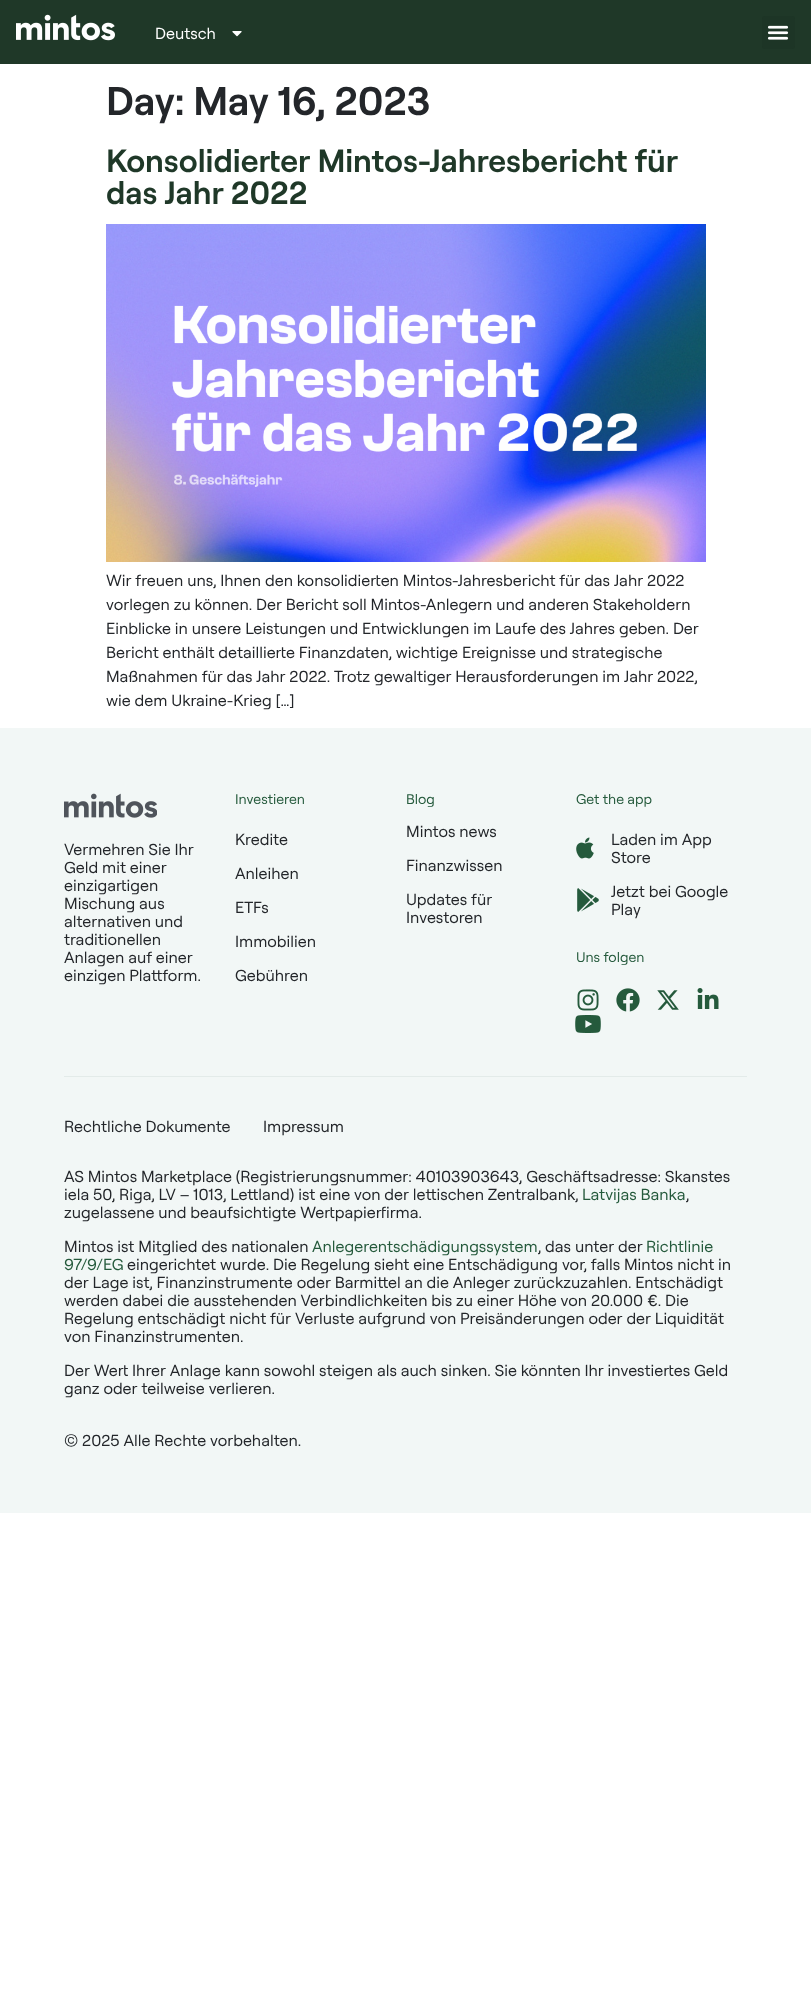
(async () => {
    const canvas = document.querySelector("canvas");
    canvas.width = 811;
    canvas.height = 2003;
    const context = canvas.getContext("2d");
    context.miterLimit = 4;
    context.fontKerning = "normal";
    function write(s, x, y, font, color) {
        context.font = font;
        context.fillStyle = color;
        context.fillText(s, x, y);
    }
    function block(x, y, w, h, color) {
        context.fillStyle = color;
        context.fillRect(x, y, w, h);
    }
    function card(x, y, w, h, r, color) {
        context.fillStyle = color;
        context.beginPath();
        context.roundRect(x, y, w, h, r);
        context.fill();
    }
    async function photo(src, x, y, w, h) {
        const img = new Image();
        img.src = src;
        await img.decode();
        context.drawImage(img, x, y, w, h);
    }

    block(0, 0, 811, 2003, "rgb(255, 255, 255)");
    block(0, 0, 811, 64, "rgb(31, 56, 40)");
    await photo("media/1.png", 16, 14, 99, 27);
    write("Deutsch", 155, 39, "16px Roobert", "rgb(255, 255, 255)");
    await photo("media/2.png", 232, 31, 10, 6);
    card(762, 16, 33, 33, 3, "rgb(29, 53, 38)");
    await photo("media/3.png", 767, 25, 22, 15);
    write("Day: May 16, 2023", 106, 115, "600 40px Roobert", "rgb(35, 38, 42)");
    write("Konsolidierter Mintos-Jahresbericht für", 106, 172, "600 32px Roobert", "rgb(31, 56, 40)");
    write("das Jahr 2022", 106, 204, "600 32px Roobert", "rgb(31, 56, 40)");
    await photo("media/4.png", 106, 224, 600, 338);
    write("Wir freuen uns, Ihnen den konsolidierten Mintos-Jahresbericht für das Jahr 2022", 106, 586, "16px Roobert", "rgb(35, 38, 42)");
    write("vorlegen zu können. Der Bericht soll Mintos-Anlegern und anderen Stakeholdern", 106, 610, "16px Roobert", "rgb(35, 38, 42)");
    write("Einblicke in unsere Leistungen und Entwicklungen im Laufe des Jahres geben. Der", 106, 634, "16px Roobert", "rgb(35, 38, 42)");
    write("Bericht enthält detaillierte Finanzdaten, wichtige Ereignisse und strategische", 106, 658, "16px Roobert", "rgb(35, 38, 42)");
    write("Maßnahmen für das Jahr 2022. Trotz gewaltiger Herausforderungen im Jahr 2022,", 106, 682, "16px Roobert", "rgb(35, 38, 42)");
    write("wie dem Ukraine-Krieg […]", 106, 706, "16px Roobert", "rgb(35, 38, 42)");
    block(0, 728, 811, 785, "rgb(242, 247, 246)");
    await photo("media/5.png", 64, 793, 93, 25);
    write("Vermehren Sie Ihr", 64, 855, "16px Roobert", "rgb(35, 38, 42)");
    write("Geld mit einer", 64, 873, "16px Roobert", "rgb(35, 38, 42)");
    write("einzigartigen", 64, 891, "16px Roobert", "rgb(35, 38, 42)");
    write("Mischung aus", 64, 909, "16px Roobert", "rgb(35, 38, 42)");
    write("alternativen und", 64, 927, "16px Roobert", "rgb(35, 38, 42)");
    write("traditionellen", 64, 945, "16px Roobert", "rgb(35, 38, 42)");
    write("Anlagen auf einer", 64, 963, "16px Roobert", "rgb(35, 38, 42)");
    write("einzigen Plattform.", 64, 981, "16px Roobert", "rgb(35, 38, 42)");
    write("Investieren", 235, 804, "14px Roobert", "rgb(37, 90, 60)");
    write("Kredite", 235, 845, "16px Roobert", "rgb(35, 38, 42)");
    write("Anleihen", 235, 879, "16px Roobert", "rgb(35, 38, 42)");
    write("ETFs", 235, 913, "16px Roobert", "rgb(35, 38, 42)");
    write("Immobilien", 235, 947, "16px Roobert", "rgb(35, 38, 42)");
    write("Gebühren", 235, 981, "16px Roobert", "rgb(35, 38, 42)");
    write("Blog", 406, 804, "14px Roobert", "rgb(37, 90, 60)");
    write("Mintos news", 406, 837, "16px Roobert", "rgb(35, 38, 42)");
    write("Finanzwissen", 406, 871, "16px Roobert", "rgb(35, 38, 42)");
    write("Updates für", 406, 905, "16px Roobert", "rgb(35, 38, 42)");
    write("Investoren", 406, 923, "16px Roobert", "rgb(35, 38, 42)");
    write("Get the app", 576, 804, "14px Roobert", "rgb(37, 90, 60)");
    await photo("media/6.png", 576, 837, 18, 22);
    write("Laden im App", 611, 845, "16px Roobert", "rgb(35, 38, 42)");
    write("Store", 611, 863, "16px Roobert", "rgb(35, 38, 42)");
    await photo("media/7.png", 577, 888, 22, 24);
    write("Jetzt bei Google", 611, 897, "16px Roobert", "rgb(35, 38, 42)");
    write("Play", 611, 915, "16px Roobert", "rgb(35, 38, 42)");
    write("Uns folgen", 576, 962, "14px Roobert", "rgb(37, 90, 60)");
    await photo("media/8.png", 577, 989, 22, 22);
    await photo("media/9.png", 616, 988, 24, 24);
    await photo("media/10.png", 657, 990, 22, 20);
    await photo("media/11.png", 697, 988, 22, 21);
    await photo("media/12.png", 575, 1015, 26, 18);
    block(64, 1076, 683, 1, "rgb(227, 235, 233)");
    write("Rechtliche Dokumente", 64, 1132, "16px Roobert", "rgb(35, 38, 42)");
    write("Impressum", 263, 1132, "16px Roobert", "rgb(35, 38, 42)");
    write("AS Mintos Marketplace (Registrierungsnummer: 40103903643, Geschäftsadresse: Skanstes", 64, 1182, "16px Roobert", "rgb(35, 38, 42)");
    write("iela 50, Riga, LV – 1013, Lettland) ist eine von der lettischen Zentralbank,", 64, 1200, "16px Roobert", "rgb(35, 38, 42)");
    write("Latvijas Banka", 582, 1200, "16px Roobert", "rgb(37, 90, 60)");
    write(",", 686, 1200, "16px Roobert", "rgb(35, 38, 42)");
    write("zugelassene und beaufsichtigte Wertpapierfirma.", 64, 1218, "16px Roobert", "rgb(35, 38, 42)");
    write("Mintos ist Mitglied des nationalen", 64, 1252, "16px Roobert", "rgb(35, 38, 42)");
    write("Anlegerentschädigungssystem", 312, 1252, "16px Roobert", "rgb(37, 90, 60)");
    write(", das unter der", 538, 1252, "16px Roobert", "rgb(35, 38, 42)");
    write("Richtlinie", 646, 1252, "16px Roobert", "rgb(37, 90, 60)");
    write("97/9/EG", 64, 1270, "16px Roobert", "rgb(37, 90, 60)");
    write("eingerichtet wurde. Die Regelung sieht eine Entschädigung vor, falls Mintos nicht in", 127, 1270, "16px Roobert", "rgb(35, 38, 42)");
    write("der Lage ist, Finanzinstrumente oder Barmittel an die Anleger zurückzuzahlen. Entschädigt", 64, 1288, "16px Roobert", "rgb(35, 38, 42)");
    write("werden dabei die ausstehenden Verbindlichkeiten bis zu einer Höhe von 20.000 €. Die", 64, 1306, "16px Roobert", "rgb(35, 38, 42)");
    write("Regelung entschädigt nicht für Verluste aufgrund von Preisänderungen oder der Liquidität", 64, 1324, "16px Roobert", "rgb(35, 38, 42)");
    write("von Finanzinstrumenten.", 64, 1342, "16px Roobert", "rgb(35, 38, 42)");
    write("Der Wert Ihrer Anlage kann sowohl steigen als auch sinken. Sie könnten Ihr investiertes Geld", 64, 1376, "16px Roobert", "rgb(35, 38, 42)");
    write("ganz oder teilweise verlieren.", 64, 1394, "16px Roobert", "rgb(35, 38, 42)");
    write("© 2025 Alle Rechte vorbehalten.", 64, 1446, "16px Roobert", "rgb(35, 38, 42)");
})();
